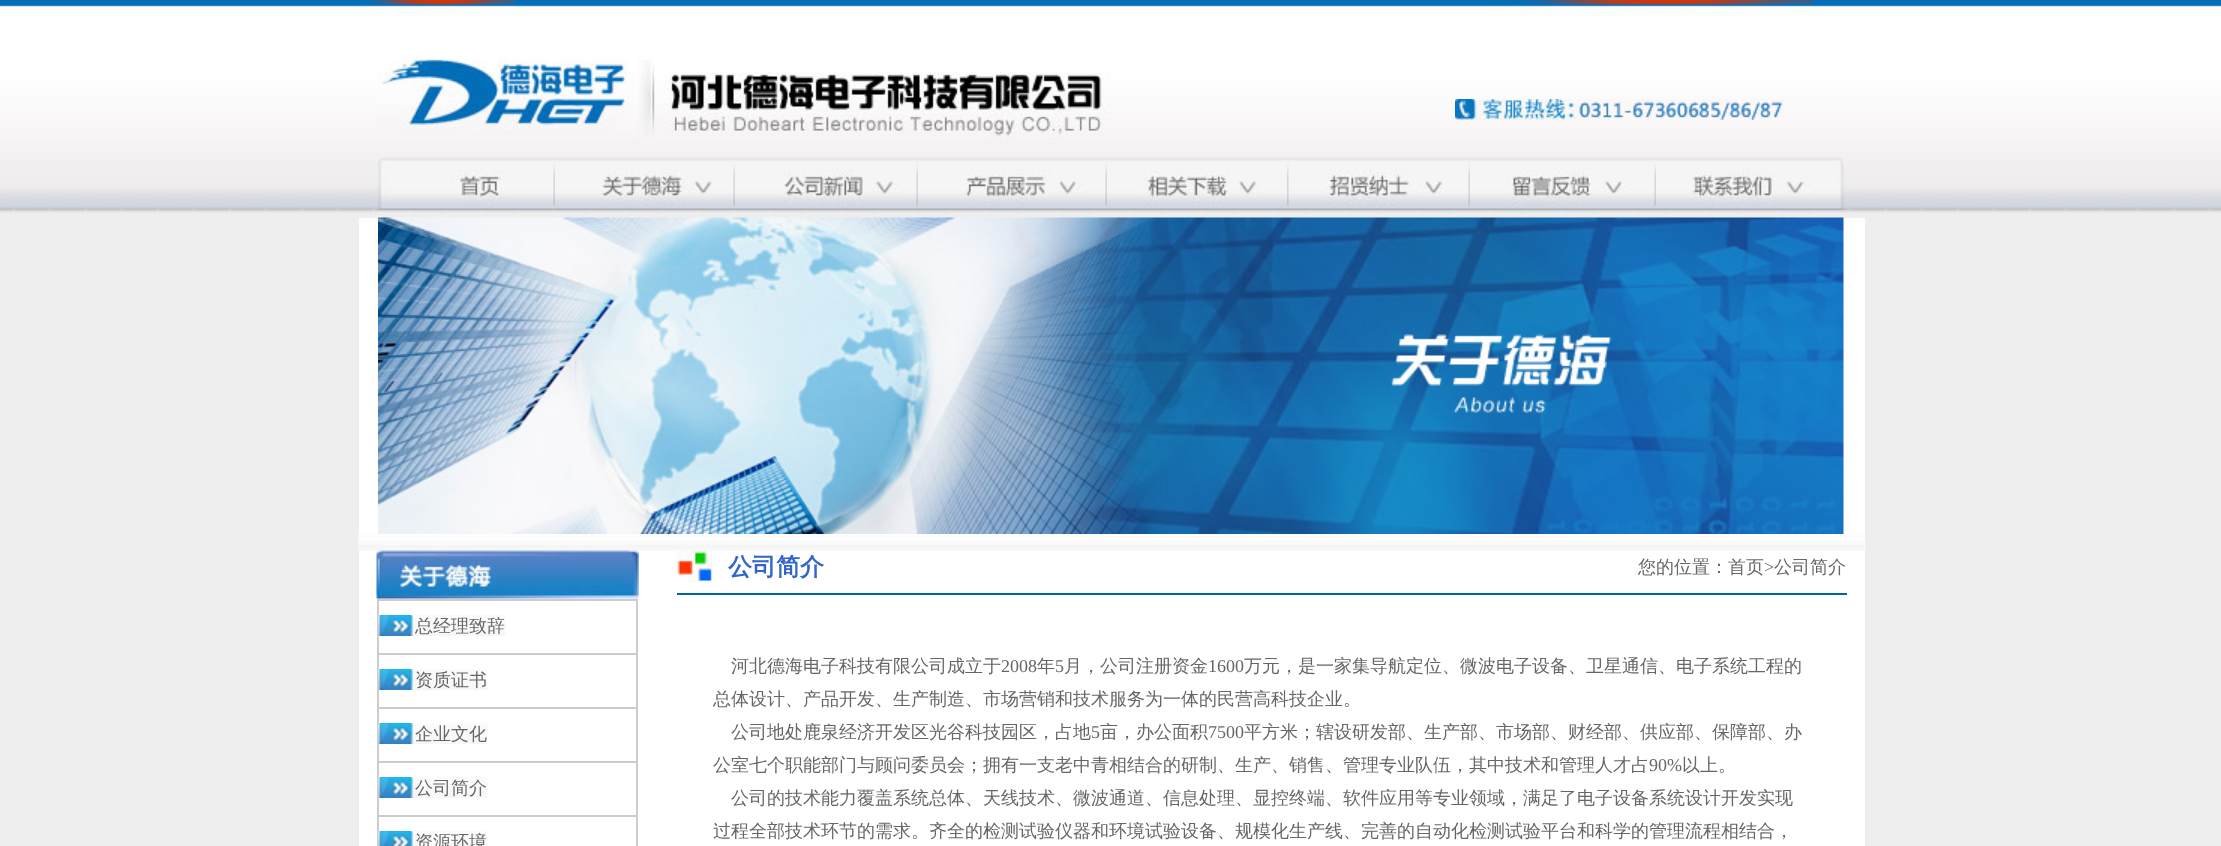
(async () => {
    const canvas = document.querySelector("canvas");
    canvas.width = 2221;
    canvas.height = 846;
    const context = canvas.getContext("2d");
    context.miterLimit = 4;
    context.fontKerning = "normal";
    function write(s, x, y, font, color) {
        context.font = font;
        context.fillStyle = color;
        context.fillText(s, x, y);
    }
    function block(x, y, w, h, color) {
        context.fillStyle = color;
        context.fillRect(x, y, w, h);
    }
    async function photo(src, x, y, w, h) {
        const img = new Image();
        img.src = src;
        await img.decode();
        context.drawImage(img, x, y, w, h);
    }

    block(0, 0, 2221, 846, "rgb(238, 238, 238)");
    block(0, 0, 2221, 5, "rgb(2, 110, 183)");
    await photo("media/1.png", 365, 0, 1449, 5);
    await photo("media/2.png", 0, 4, 2221, 209);
    await photo("media/3.png", 378, 59, 732, 85);
    await photo("media/4.png", 1455, 99, 330, 21);
    await photo("media/5.png", 378, 157, 176, 53);
    await photo("media/6.png", 553, 157, 2, 53);
    await photo("media/7.png", 555, 157, 179, 53);
    await photo("media/6.png", 733, 157, 2, 53);
    await photo("media/8.png", 735, 157, 182, 53);
    await photo("media/9.png", 916, 157, 2, 53);
    await photo("media/10.png", 918, 157, 188, 53);
    await photo("media/11.png", 1105, 157, 2, 53);
    await photo("media/12.png", 1107, 157, 180, 53);
    await photo("media/14.png", 1288, 157, 181, 53);
    await photo("media/13.png", 1287, 157, 2, 53);
    await photo("media/15.png", 1468, 157, 2, 53);
    await photo("media/16.png", 1470, 157, 185, 53);
    await photo("media/11.png", 1654, 157, 2, 53);
    await photo("media/17.png", 1656, 157, 188, 53);
    block(359, 218, 1506, 628, "rgb(255, 255, 255)");
    await photo("media/18.png", 378, 217, 1466, 317);
    await photo("media/19.png", 358, 534, 1507, 17);
    await photo("media/20.png", 376, 550, 263, 49);
    context.strokeStyle = "rgb(204, 204, 204)";
    context.lineWidth = 2;
    context.strokeRect(378, 600, 259, 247);
    block(378, 653, 258, 2, "rgb(204, 204, 204)");
    await photo("media/21.png", 378, 615, 128, 21);
    write("总经理致辞", 415, 632, "500 18px WenQuanYi Zen Hei", "rgb(102, 102, 102)");
    block(378, 707, 258, 2, "rgb(204, 204, 204)");
    await photo("media/22.png", 378, 669, 110, 21);
    write("资质证书", 415, 686, "500 18px WenQuanYi Zen Hei", "rgb(102, 102, 102)");
    block(378, 761, 258, 2, "rgb(204, 204, 204)");
    await photo("media/22.png", 378, 723, 110, 21);
    write("企业文化", 415, 740, "500 18px WenQuanYi Zen Hei", "rgb(102, 102, 102)");
    block(378, 815, 258, 2, "rgb(204, 204, 204)");
    await photo("media/22.png", 378, 777, 110, 21);
    write("公司简介", 415, 794, "500 18px WenQuanYi Zen Hei", "rgb(102, 102, 102)");
    await photo("media/23.png", 378, 831, 110, 15);
    write("资源环境", 415, 848, "500 18px WenQuanYi Zen Hei", "rgb(102, 102, 102)");
    await photo("media/24.png", 676, 550, 37, 32);
    block(677, 593, 1170, 2, "rgb(0, 102, 153)");
    write("公司简介", 728, 575, "bold 24px WenQuanYi Zen Hei", "rgb(51, 102, 204)");
    write("您的位置：首页", 1638, 573, "500 18px WenQuanYi Zen Hei", "rgb(102, 102, 102)");
    write(">", 1764, 573, "18px Liberation Serif", "rgb(102, 102, 102)");
    write("公司简介", 1774, 573, "500 18px WenQuanYi Zen Hei", "rgb(102, 102, 102)");
    write("河北德海电子科技有限公司成立于", 731, 672, "500 18px WenQuanYi Zen Hei", "rgb(102, 102, 102)");
    write("2008", 1001, 672, "18px Liberation Serif", "rgb(102, 102, 102)");
    write("年", 1037, 672, "500 18px WenQuanYi Zen Hei", "rgb(102, 102, 102)");
    write("5", 1055, 672, "18px Liberation Serif", "rgb(102, 102, 102)");
    write("月，公司注册资金", 1064, 672, "500 18px WenQuanYi Zen Hei", "rgb(102, 102, 102)");
    write("1600", 1208, 672, "18px Liberation Serif", "rgb(102, 102, 102)");
    write("万元，是一家集导航定位、微波电子设备、卫星通信、电子系统工程的", 1244, 672, "500 18px WenQuanYi Zen Hei", "rgb(102, 102, 102)");
    write("总体设计、产品开发、生产制造、市场营销和技术服务为一体的民营高科技企业。", 713, 705, "500 18px WenQuanYi Zen Hei", "rgb(102, 102, 102)");
    write("公司地处鹿泉经济开发区光谷科技园区，占地", 731, 738, "500 18px WenQuanYi Zen Hei", "rgb(102, 102, 102)");
    write("5", 1091, 738, "18px Liberation Serif", "rgb(102, 102, 102)");
    write("亩，办公面积", 1100, 738, "500 18px WenQuanYi Zen Hei", "rgb(102, 102, 102)");
    write("7500", 1208, 738, "18px Liberation Serif", "rgb(102, 102, 102)");
    write("平方米；辖设研发部、生产部、市场部、财经部、供应部、保障部、办", 1244, 738, "500 18px WenQuanYi Zen Hei", "rgb(102, 102, 102)");
    write("公室七个职能部门与顾问委员会；拥有一支老中青相结合的研制、生产、销售、管理专业队伍，其中技术和管理人才占", 713, 771, "500 18px WenQuanYi Zen Hei", "rgb(102, 102, 102)");
    write("90%", 1649, 771, "18px Liberation Serif", "rgb(102, 102, 102)");
    write("以上。", 1682, 771, "500 18px WenQuanYi Zen Hei", "rgb(102, 102, 102)");
    write("公司的技术能力覆盖系统总体、天线技术、微波通道、信息处理、显控终端、软件应用等专业领域，满足了电子设备系统设计开发实现", 731, 804, "500 18px WenQuanYi Zen Hei", "rgb(102, 102, 102)");
    write("过程全部技术环节的需求。齐全的检测试验仪器和环境试验设备、规模化生产线、完善的自动化检测试验平台和科学的管理流程相结合，", 713, 837, "500 18px WenQuanYi Zen Hei", "rgb(102, 102, 102)");
})();
